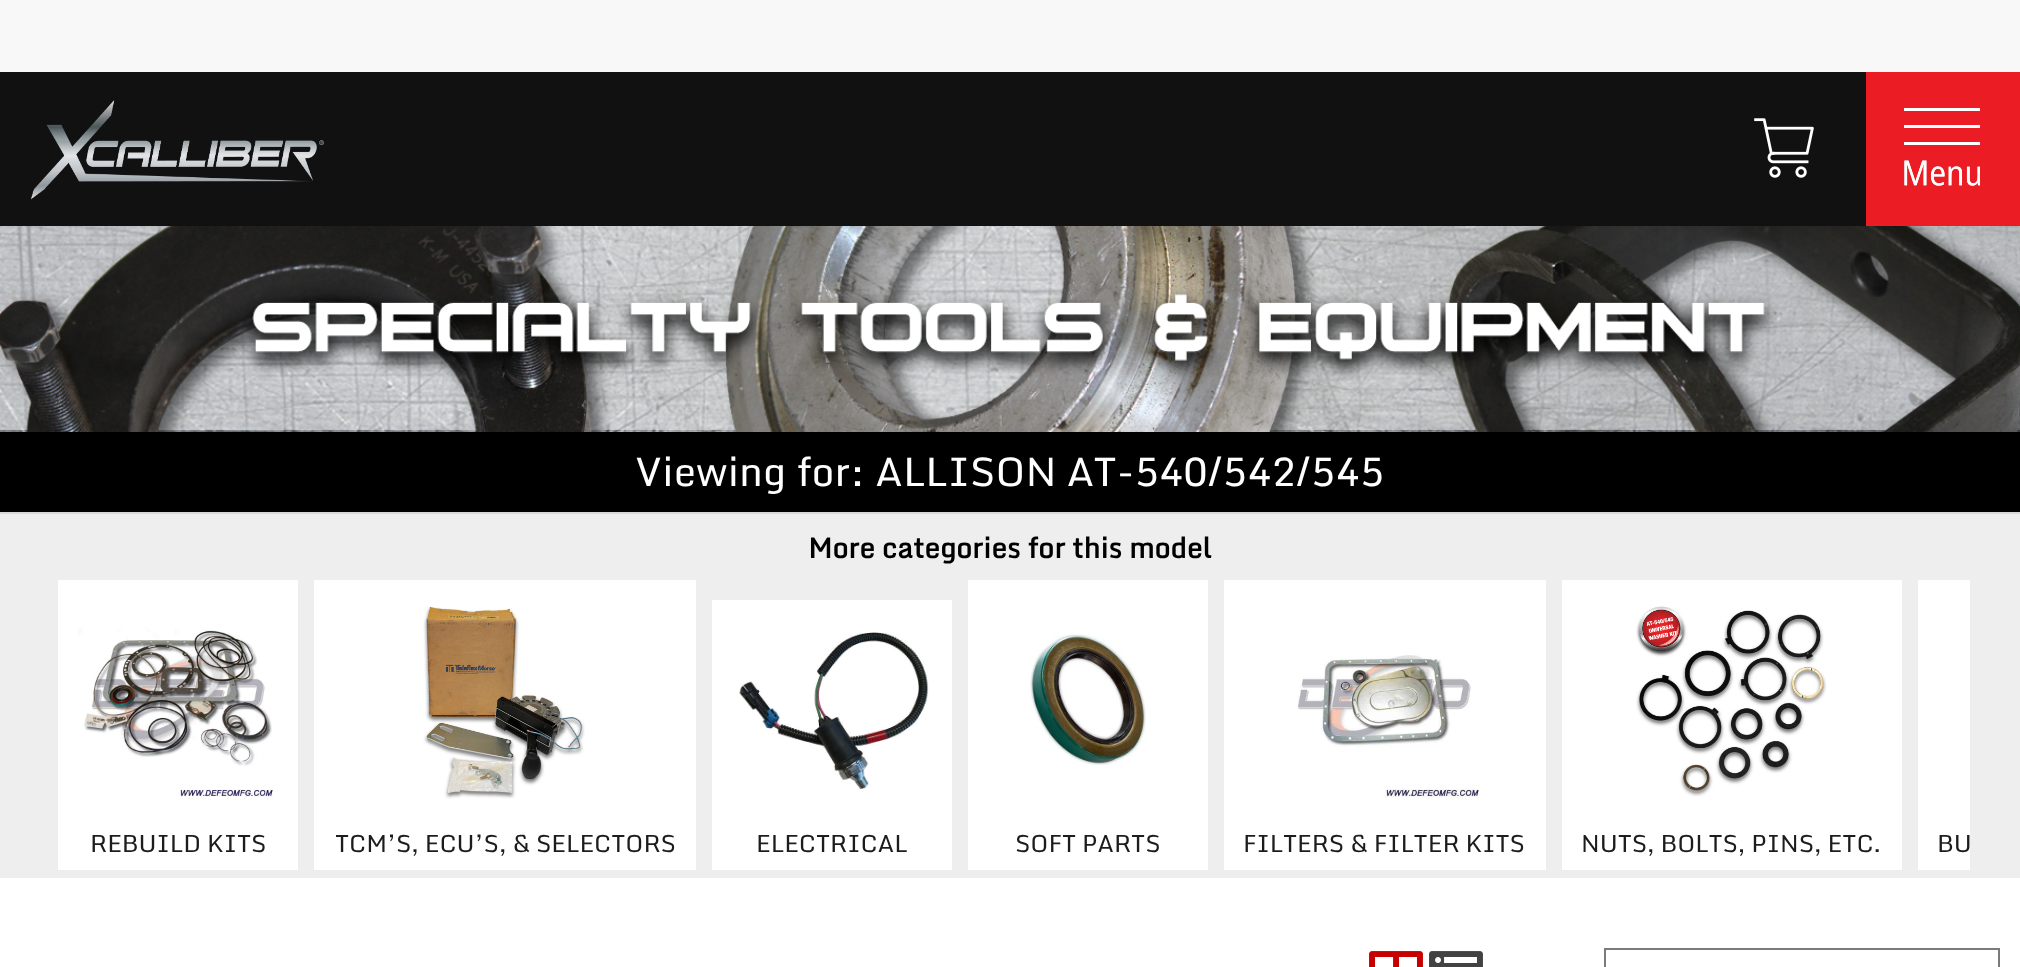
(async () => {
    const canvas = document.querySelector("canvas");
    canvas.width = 2020;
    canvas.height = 967;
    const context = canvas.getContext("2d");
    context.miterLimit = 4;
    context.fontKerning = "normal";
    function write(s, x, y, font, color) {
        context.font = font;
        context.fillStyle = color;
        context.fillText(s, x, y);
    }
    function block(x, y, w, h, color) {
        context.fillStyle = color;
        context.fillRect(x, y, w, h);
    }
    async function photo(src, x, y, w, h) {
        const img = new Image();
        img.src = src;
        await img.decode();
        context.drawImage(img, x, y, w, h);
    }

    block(0, 0, 2020, 967, "rgb(255, 255, 255)");
    block(0, 0, 2020, 72, "rgb(248, 248, 248)");
    block(0, 432, 2020, 80, "rgb(0, 0, 0)");
    context.filter = "blur(6px)";
    context.beginPath();
    context.rect(0, 230, 2020, 210);
    context.fill();
    context.filter = "none";
    block(0, 72, 1866, 154, "rgb(17, 17, 17)");
    await photo("media/1.png", 31, 100, 293, 100);
    await photo("media/2.png", 1754, 118, 60, 60);
    block(1866, 72, 154, 154, "rgb(235, 28, 36)");
    await photo("media/3.png", 1904, 108, 76, 78);
    await photo("media/4.png", 0, 226, 2020, 206);
    write("Viewing for: ALLISON AT-540/542/545", 635, 486, "40px Monda", "rgb(255, 255, 255)");
    block(0, 514, 2020, 364, "rgb(238, 238, 238)");
    block(0, 512, 2020, 2, "rgb(216, 216, 216)");
    write("More categories for this model", 808, 558, "bold 28px Monda", "rgb(0, 0, 0)");
    block(58, 580, 240, 290, "rgb(255, 255, 255)");
    await photo("media/5.png", 78, 627, 195, 170);
    write("REBUILD KITS", 90, 852, "24px Monda", "rgb(28, 28, 28)");
    block(314, 580, 382, 290, "rgb(255, 255, 255)");
    await photo("media/6.png", 423, 607, 162, 192);
    write("TCM’S, ECU’S, & SELECTORS", 335, 852, "24px Monda", "rgb(28, 28, 28)");
    block(712, 600, 240, 270, "rgb(255, 255, 255)");
    await photo("media/7.png", 739, 632, 190, 158);
    write("ELECTRICAL", 756, 852, "24px Monda", "rgb(28, 28, 28)");
    block(968, 580, 240, 290, "rgb(255, 255, 255)");
    await photo("media/8.png", 1030, 634, 116, 131);
    write("SOFT PARTS", 1015, 852, "24px Monda", "rgb(28, 28, 28)");
    block(1224, 580, 322, 290, "rgb(255, 255, 255)");
    await photo("media/9.png", 1297, 655, 184, 143);
    write("FILTERS & FILTER KITS", 1243, 852, "24px Monda", "rgb(28, 28, 28)");
    block(1562, 580, 340, 290, "rgb(255, 255, 255)");
    await photo("media/10.png", 1636, 606, 191, 191);
    write("NUTS, BOLTS, PINS, ETC.", 1581, 852, "24px Monda", "rgb(28, 28, 28)");
    block(1918, 580, 52, 290, "rgb(255, 255, 255)");
    write("BU", 1937, 852, "24px Monda", "rgb(28, 28, 28)");
    await photo("media/11.png", 1369, 951, 54, 16);
    await photo("media/12.png", 1429, 951, 54, 16);
    context.strokeStyle = "rgb(123, 123, 123)";
    context.lineWidth = 2;
    context.strokeRect(1605, 949, 394, 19);
})();
